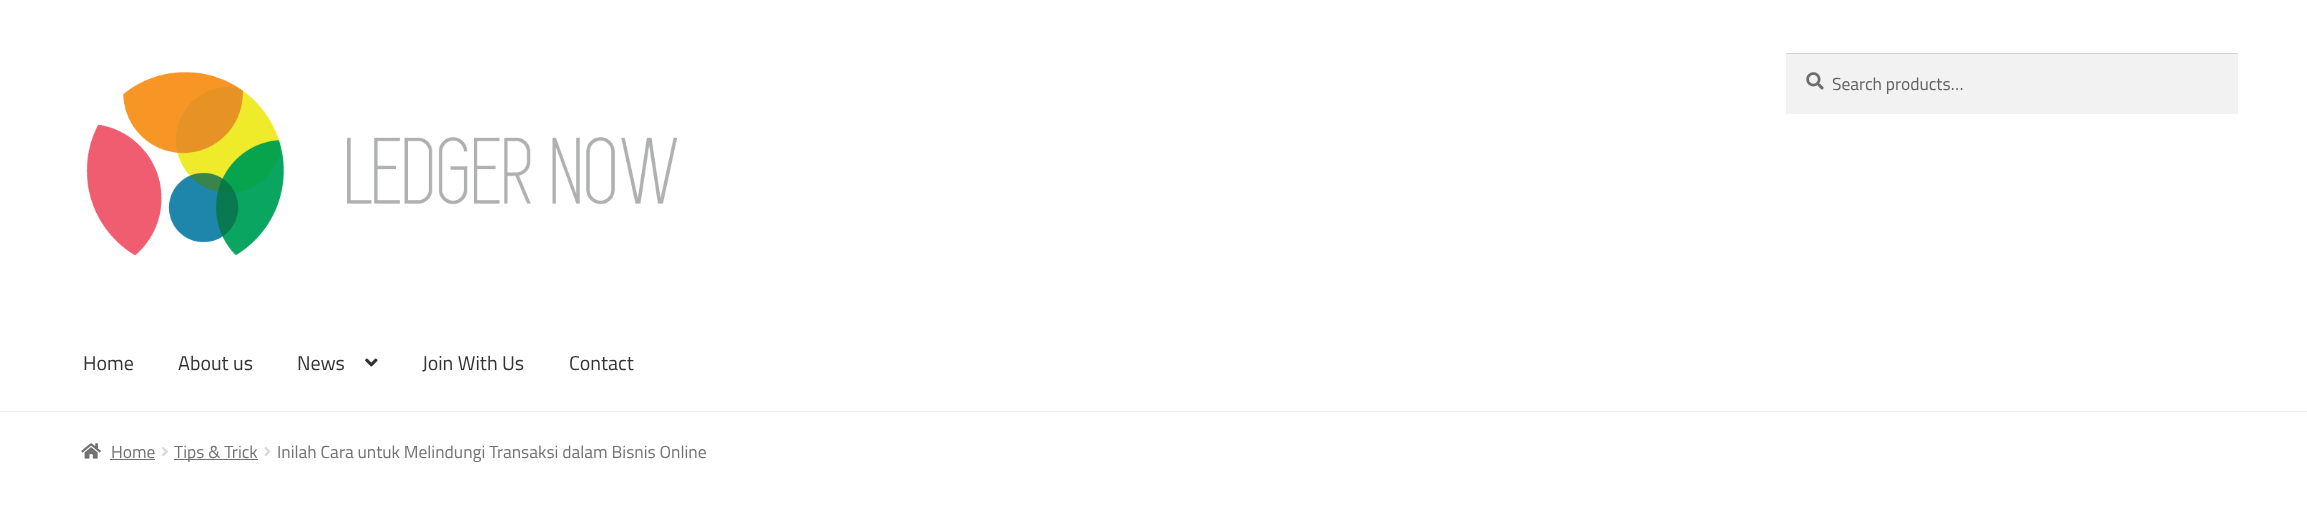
(async () => {
    const canvas = document.querySelector("canvas");
    canvas.width = 2307;
    canvas.height = 521;
    const context = canvas.getContext("2d");
    context.miterLimit = 4;
    context.fontKerning = "normal";
    function write(s, x, y, font, color) {
        context.font = font;
        context.fillStyle = color;
        context.fillText(s, x, y);
    }
    function block(x, y, w, h, color) {
        context.fillStyle = color;
        context.fillRect(x, y, w, h);
    }
    async function photo(src, x, y, w, h) {
        const img = new Image();
        img.src = src;
        await img.decode();
        context.drawImage(img, x, y, w, h);
    }

    block(0, 0, 2307, 521, "rgb(255, 255, 255)");
    block(0, 411, 2307, 1, "rgb(240, 240, 240)");
    await photo("media/1.png", 87, 72, 590, 184);
    block(1786, 54, 452, 60, "rgb(242, 242, 242)");
    await photo("media/2.png", 1806, 72, 18, 18);
    block(1786, 53, 452, 1, "rgb(212, 212, 212)");
    write("Search products…", 1832, 90, "17.5px Titillium Web", "rgb(97, 97, 97)");
    write("Home", 83, 370, "20px Titillium Web", "rgb(51, 51, 51)");
    write("About us", 178, 370, "20px Titillium Web", "rgb(51, 51, 51)");
    write("News", 297, 370, "20px Titillium Web", "rgb(51, 51, 51)");
    await photo("media/3.png", 365, 358, 13, 9);
    write("Join With Us", 422, 370, "20px Titillium Web", "rgb(51, 51, 51)");
    write("Contact", 569, 370, "20px Titillium Web", "rgb(51, 51, 51)");
    await photo("media/4.png", 81, 443, 20, 16);
    write("Home", 111, 458, "17.5px Titillium Web", "rgb(114, 114, 114)");
    block(110, 459, 45, 1, "rgb(114, 114, 114)");
    await photo("media/5.png", 162, 447, 6, 10);
    block(174, 459, 84, 1, "rgb(114, 114, 114)");
    write("Tips & Trick", 174, 458, "17.5px Titillium Web", "rgb(114, 114, 114)");
    await photo("media/6.png", 264, 447, 7, 10);
    write("Inilah Cara untuk Melindungi Transaksi dalam Bisnis Online", 277, 458, "17.5px Titillium Web", "rgb(114, 114, 114)");
})();
